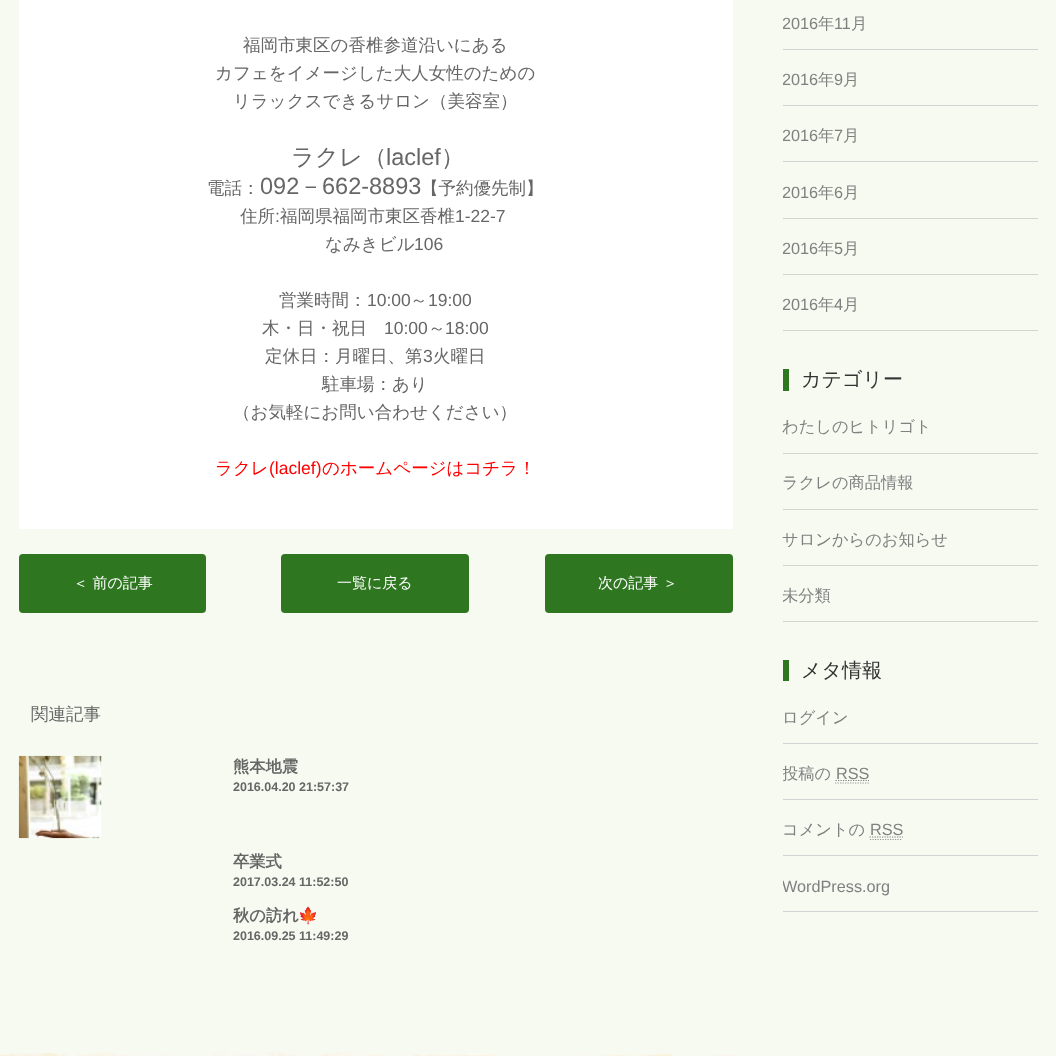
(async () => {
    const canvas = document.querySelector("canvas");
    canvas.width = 1056;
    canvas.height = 1056;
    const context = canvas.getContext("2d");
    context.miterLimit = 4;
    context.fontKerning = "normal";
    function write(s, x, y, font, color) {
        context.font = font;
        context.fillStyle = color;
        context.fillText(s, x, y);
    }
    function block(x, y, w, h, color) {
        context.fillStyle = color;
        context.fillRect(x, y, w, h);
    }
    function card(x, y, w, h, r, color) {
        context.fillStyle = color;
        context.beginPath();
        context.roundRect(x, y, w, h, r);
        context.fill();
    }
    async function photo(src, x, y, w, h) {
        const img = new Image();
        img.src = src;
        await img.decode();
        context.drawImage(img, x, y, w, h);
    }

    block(0, 0, 1056, 1056, "rgb(246, 250, 241)");
    block(19, 0, 714, 529, "rgb(255, 255, 255)");
    write("福岡市東区の香椎参道沿いにある", 243, 51, "500 17.5px WenQuanYi Zen Hei", "rgb(102, 102, 102)");
    write("カフェをイメージした大人女性のための", 215, 79, "500 17.5px WenQuanYi Zen Hei", "rgb(102, 102, 102)");
    write("リラックスできるサロン（美容室）", 233, 107, "500 17.5px WenQuanYi Zen Hei", "rgb(102, 102, 102)");
    write("ラクレ（", 291, 165, "500 23.5px WenQuanYi Zen Hei", "rgb(102, 102, 102)");
    write("laclef", 386, 165, "23.5px Liberation Sans", "rgb(102, 102, 102)");
    write("）", 441, 165, "500 23.5px WenQuanYi Zen Hei", "rgb(102, 102, 102)");
    write("電話：", 207, 194, "500 17.5px WenQuanYi Zen Hei", "rgb(102, 102, 102)");
    write("092", 260, 194, "23.5px Liberation Sans", "rgb(102, 102, 102)");
    write("－", 299, 194, "500 23.5px WenQuanYi Zen Hei", "rgb(102, 102, 102)");
    write("662-8893", 322, 194, "23.5px Liberation Sans", "rgb(102, 102, 102)");
    write("【予約優先制】", 421, 194, "500 17.5px WenQuanYi Zen Hei", "rgb(102, 102, 102)");
    write("住所", 240, 222, "500 17.5px WenQuanYi Zen Hei", "rgb(102, 102, 102)");
    write(":", 275, 222, "17.5px Liberation Sans", "rgb(102, 102, 102)");
    write("福岡県福岡市東区香椎", 280, 222, "500 17.5px WenQuanYi Zen Hei", "rgb(102, 102, 102)");
    write("1‐22‐7", 455, 222, "17.5px Liberation Sans", "rgb(102, 102, 102)");
    write("なみきビル", 325, 250, "500 17.5px WenQuanYi Zen Hei", "rgb(102, 102, 102)");
    write("106", 414, 250, "17.5px Liberation Sans", "rgb(102, 102, 102)");
    write("営業時間：", 279, 306, "500 17.5px WenQuanYi Zen Hei", "rgb(102, 102, 102)");
    write("10:00", 367, 306, "17.5px Liberation Sans", "rgb(102, 102, 102)");
    write("～", 410, 306, "500 17.5px WenQuanYi Zen Hei", "rgb(102, 102, 102)");
    write("19:00", 428, 306, "17.5px Liberation Sans", "rgb(102, 102, 102)");
    write("木・日・祝日", 262, 334, "500 17.5px WenQuanYi Zen Hei", "rgb(102, 102, 102)");
    write("10:00", 384, 334, "17.5px Liberation Sans", "rgb(102, 102, 102)");
    write("～", 428, 334, "500 17.5px WenQuanYi Zen Hei", "rgb(102, 102, 102)");
    write("18:00", 445, 334, "17.5px Liberation Sans", "rgb(102, 102, 102)");
    write("定休日：月曜日、第", 265, 362, "500 17.5px WenQuanYi Zen Hei", "rgb(102, 102, 102)");
    write("3", 423, 362, "17.5px Liberation Sans", "rgb(102, 102, 102)");
    write("火曜日", 433, 362, "500 17.5px WenQuanYi Zen Hei", "rgb(102, 102, 102)");
    write("駐車場：あり", 322, 390, "500 17.5px WenQuanYi Zen Hei", "rgb(102, 102, 102)");
    write("（お気軽にお問い合わせください）", 233, 418, "500 17.5px WenQuanYi Zen Hei", "rgb(102, 102, 102)");
    write("ラクレ", 215, 474, "500 17.5px WenQuanYi Zen Hei", "rgb(255, 0, 0)");
    write("(laclef)", 269, 474, "17.5px Liberation Sans", "rgb(255, 0, 0)");
    write("のホームページはコチラ！", 322, 474, "500 17.5px WenQuanYi Zen Hei", "rgb(255, 0, 0)");
    card(19, 554, 187, 59, 4, "rgb(46, 118, 32)");
    write("＜ 前の記事", 73, 588, "500 15px WenQuanYi Zen Hei", "rgb(255, 255, 255)");
    card(281, 554, 188, 59, 4, "rgb(46, 118, 32)");
    write("一覧に戻る", 337, 588, "500 15px WenQuanYi Zen Hei", "rgb(255, 255, 255)");
    card(545, 554, 188, 59, 4, "rgb(46, 118, 32)");
    write("次の記事 ＞", 598, 588, "500 15px WenQuanYi Zen Hei", "rgb(255, 255, 255)");
    write("関連記事", 31, 720, "500 17.5px WenQuanYi Zen Hei", "rgb(102, 102, 102)");
    await photo("media/1.png", 18, 755, 84, 84);
    write("熊本地震", 233, 772, "bold 16.25px WenQuanYi Zen Hei", "rgb(102, 102, 102)");
    write("2016.04.20 21:57:37", 233, 791, "bold 12.5px Liberation Sans", "rgb(102, 102, 102)");
    write("卒業式", 233, 867, "bold 16.25px WenQuanYi Zen Hei", "rgb(102, 102, 102)");
    write("2017.03.24 11:52:50", 233, 886, "bold 12.5px Liberation Sans", "rgb(102, 102, 102)");
    write("秋の訪れ", 233, 921, "bold 16.25px WenQuanYi Zen Hei", "rgb(102, 102, 102)");
    write("🍁", 298, 921, "bold 16.25px Noto Color Emoji", "rgb(102, 102, 102)");
    write("2016.09.25 11:49:29", 233, 940, "bold 12.5px Liberation Sans", "rgb(102, 102, 102)");
    block(783, 49, 255, 1, "rgb(212, 211, 211)");
    context.save();
    context.beginPath();
    context.rect(783, 13, 255, 36);
    context.clip();
    write("2016", 782, 29, "16.25px Liberation Sans", "rgb(128, 128, 128)");
    context.restore();
    write("年", 818, 29, "500 16.25px WenQuanYi Zen Hei", "rgb(128, 128, 128)");
    write("11", 834, 29, "16.25px Liberation Sans", "rgb(128, 128, 128)");
    write("月", 851, 29, "500 16.25px WenQuanYi Zen Hei", "rgb(128, 128, 128)");
    block(783, 105, 255, 1, "rgb(212, 211, 211)");
    context.save();
    context.beginPath();
    context.rect(783, 69, 255, 36);
    context.clip();
    write("2016", 782, 85, "16.25px Liberation Sans", "rgb(128, 128, 128)");
    context.restore();
    write("年", 818, 85, "500 16.25px WenQuanYi Zen Hei", "rgb(128, 128, 128)");
    write("9", 834, 85, "16.25px Liberation Sans", "rgb(128, 128, 128)");
    write("月", 843, 85, "500 16.25px WenQuanYi Zen Hei", "rgb(128, 128, 128)");
    block(783, 161, 255, 1, "rgb(212, 211, 211)");
    context.save();
    context.beginPath();
    context.rect(783, 125, 255, 36);
    context.clip();
    write("2016", 782, 141, "16.25px Liberation Sans", "rgb(128, 128, 128)");
    context.restore();
    write("年", 818, 141, "500 16.25px WenQuanYi Zen Hei", "rgb(128, 128, 128)");
    write("7", 834, 141, "16.25px Liberation Sans", "rgb(128, 128, 128)");
    write("月", 843, 141, "500 16.25px WenQuanYi Zen Hei", "rgb(128, 128, 128)");
    block(783, 218, 255, 1, "rgb(212, 211, 211)");
    context.save();
    context.beginPath();
    context.rect(783, 181, 255, 37);
    context.clip();
    write("2016", 782, 198, "16.25px Liberation Sans", "rgb(128, 128, 128)");
    context.restore();
    write("年", 818, 198, "500 16.25px WenQuanYi Zen Hei", "rgb(128, 128, 128)");
    write("6", 834, 198, "16.25px Liberation Sans", "rgb(128, 128, 128)");
    write("月", 843, 198, "500 16.25px WenQuanYi Zen Hei", "rgb(128, 128, 128)");
    block(783, 274, 255, 1, "rgb(212, 211, 211)");
    context.save();
    context.beginPath();
    context.rect(783, 238, 255, 36);
    context.clip();
    write("2016", 782, 254, "16.25px Liberation Sans", "rgb(128, 128, 128)");
    context.restore();
    write("年", 818, 254, "500 16.25px WenQuanYi Zen Hei", "rgb(128, 128, 128)");
    write("5", 834, 254, "16.25px Liberation Sans", "rgb(128, 128, 128)");
    write("月", 843, 254, "500 16.25px WenQuanYi Zen Hei", "rgb(128, 128, 128)");
    block(783, 330, 255, 1, "rgb(212, 211, 211)");
    context.save();
    context.beginPath();
    context.rect(783, 294, 255, 36);
    context.clip();
    write("2016", 782, 310, "16.25px Liberation Sans", "rgb(128, 128, 128)");
    context.restore();
    write("年", 818, 310, "500 16.25px WenQuanYi Zen Hei", "rgb(128, 128, 128)");
    write("4", 834, 310, "16.25px Liberation Sans", "rgb(128, 128, 128)");
    write("月", 843, 310, "500 16.25px WenQuanYi Zen Hei", "rgb(128, 128, 128)");
    block(783, 369, 6, 22, "rgb(46, 118, 32)");
    write("カテゴリー", 801, 386, "500 20px WenQuanYi Zen Hei", "rgb(51, 51, 51)");
    block(783, 453, 255, 1, "rgb(212, 211, 211)");
    write("わたしのヒトリゴト", 782, 432, "500 16.25px WenQuanYi Zen Hei", "rgb(128, 128, 128)");
    block(783, 509, 255, 1, "rgb(212, 211, 211)");
    write("ラクレの商品情報", 782, 488, "500 16.25px WenQuanYi Zen Hei", "rgb(128, 128, 128)");
    block(783, 565, 255, 1, "rgb(212, 211, 211)");
    write("サロンからのお知らせ", 782, 545, "500 16.25px WenQuanYi Zen Hei", "rgb(128, 128, 128)");
    block(783, 621, 255, 1, "rgb(212, 211, 211)");
    context.save();
    context.beginPath();
    context.rect(783, 585, 255, 36);
    context.clip();
    write("未分類", 782, 601, "500 16.25px WenQuanYi Zen Hei", "rgb(128, 128, 128)");
    context.restore();
    block(783, 660, 6, 21, "rgb(46, 118, 32)");
    write("メタ情報", 801, 677, "500 20px WenQuanYi Zen Hei", "rgb(51, 51, 51)");
    block(783, 743, 255, 1, "rgb(212, 211, 211)");
    write("ログイン", 782, 723, "500 16.25px WenQuanYi Zen Hei", "rgb(128, 128, 128)");
    block(783, 799, 255, 1, "rgb(212, 211, 211)");
    context.save();
    context.beginPath();
    context.rect(783, 763, 255, 36);
    context.clip();
    write("投稿の", 782, 779, "500 16.25px WenQuanYi Zen Hei", "rgb(128, 128, 128)");
    context.restore();
    context.beginPath();
    context.moveTo(835.5, 780.5);
    context.lineTo(869, 780.5);
    context.strokeStyle = "rgb(128, 128, 128)";
    context.lineWidth = 1.2;
    context.setLineDash([1.25, 1.25]);
    context.stroke();
    write("RSS", 836, 779, "16.25px Liberation Sans", "rgb(128, 128, 128)");
    context.beginPath();
    context.moveTo(835, 783);
    context.lineTo(869, 783);
    context.strokeStyle = "rgb(153, 153, 153)";
    context.stroke();
    block(783, 855, 255, 1, "rgb(212, 211, 211)");
    write("コメントの", 782, 835, "500 16.25px WenQuanYi Zen Hei", "rgb(128, 128, 128)");
    write("RSS", 870, 835, "16.25px Liberation Sans", "rgb(128, 128, 128)");
    context.beginPath();
    context.moveTo(870, 839.5);
    context.lineTo(902.5, 839.5);
    context.stroke();
    context.beginPath();
    context.moveTo(869.5, 837);
    context.lineTo(903, 837);
    context.strokeStyle = "rgb(128, 128, 128)";
    context.stroke();
    block(783, 911, 255, 1, "rgb(212, 211, 211)");
    context.save();
    context.beginPath();
    context.rect(783, 875, 255, 36);
    context.clip();
    write("WordPress.org", 782, 892, "16.25px Liberation Sans", "rgb(128, 128, 128)");
    context.restore();
    await photo("media/2.png", 0, 1052, 740, 4);
})();
